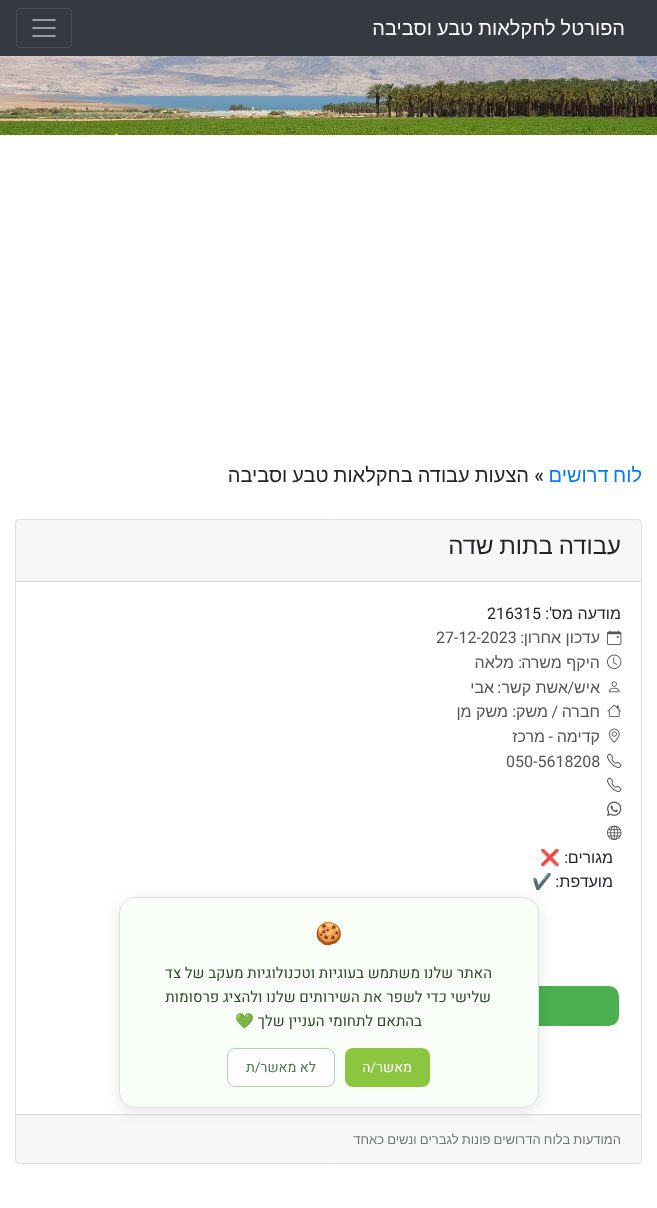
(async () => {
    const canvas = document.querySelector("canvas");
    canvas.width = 657;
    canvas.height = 1208;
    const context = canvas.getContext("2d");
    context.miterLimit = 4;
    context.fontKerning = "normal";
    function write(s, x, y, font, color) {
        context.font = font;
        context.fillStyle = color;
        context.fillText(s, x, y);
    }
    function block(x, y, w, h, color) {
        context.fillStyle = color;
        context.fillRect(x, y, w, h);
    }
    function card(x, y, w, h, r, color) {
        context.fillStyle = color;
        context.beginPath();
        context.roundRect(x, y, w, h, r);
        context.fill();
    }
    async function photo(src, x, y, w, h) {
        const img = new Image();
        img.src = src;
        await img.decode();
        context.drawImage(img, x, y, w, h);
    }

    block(0, 0, 657, 1208, "rgb(255, 255, 255)");
    block(0, 0, 657, 56, "rgb(52, 58, 64)");
    context.wordSpacing = "-0.5px";
    context.direction = "rtl";
    write("הפורטל לחקלאות טבע וסביבה", 625, 35, "20px Liberation Sans", "rgb(255, 255, 255)");
    context.beginPath();
    context.roundRect(16.5, 8.5, 55, 39, 3.5);
    context.strokeStyle = "rgb(72, 78, 83)";
    context.stroke();
    await photo("media/1.png", 32, 19, 24, 18);
    await photo("media/2.png", 0, 56, 657, 79);
    context.wordSpacing = "-1px";
    write("לוח דרושים", 642, 482, "20px Liberation Sans", "rgb(0, 123, 255)");
    context.wordSpacing = "0px";
    write("»", 544, 482, "500 20px Roboto", "rgb(33, 37, 41)");
    context.wordSpacing = "-0.5px";
    write("הצעות עבודה בחקלאות טבע וסביבה", 529, 482, "20px Liberation Sans", "rgb(33, 37, 41)");
    context.beginPath();
    context.roundRect(15.5, 519.5, 626, 644, 3.5);
    context.strokeStyle = "rgb(223, 223, 223)";
    context.stroke();
    block(16, 520, 625, 61, "rgba(0, 0, 0, 0.03)");
    block(16, 581, 625, 1, "rgb(216, 216, 216)");
    context.wordSpacing = "-1px";
    write("עבודה בתות שדה", 621, 554, "24px Liberation Sans", "rgb(33, 37, 41)");
    context.wordSpacing = "0px";
    write("מודעה מס", 621, 619, "16px Liberation Sans", "rgb(33, 37, 41)");
    write("':", 552, 619, "16px Roboto", "rgb(33, 37, 41)");
    context.direction = "ltr";
    write("216315", 487, 619, "16px Roboto", "rgb(33, 37, 41)");
    await photo("media/3.png", 607, 630, 15, 15);
    context.direction = "rtl";
    write("עדכון אחרון", 600, 643, "16px Liberation Sans", "rgb(85, 85, 85)");
    write(":", 524, 643, "16px Roboto", "rgb(85, 85, 85)");
    context.direction = "ltr";
    write("27-12-2023", 436, 643, "16px Roboto", "rgb(85, 85, 85)");
    await photo("media/4.png", 607, 654, 15, 15);
    context.direction = "rtl";
    write("היקף משרה", 600, 668, "16px Liberation Sans", "rgb(85, 85, 85)");
    write(":", 522, 668, "16px Roboto", "rgb(85, 85, 85)");
    write("מלאה", 514, 668, "16px Liberation Sans", "rgb(85, 85, 85)");
    await photo("media/5.png", 608, 681, 12, 12);
    write("איש", 600, 693, "16px Liberation Sans", "rgb(85, 85, 85)");
    write("אשת קשר", 568, 693, "16px Liberation Sans", "rgb(85, 85, 85)");
    write("/", 574, 693, "16px Roboto", "rgb(85, 85, 85)");
    write(":", 501, 693, "16px Roboto", "rgb(85, 85, 85)");
    write("אבי", 494, 693, "16px Liberation Sans", "rgb(85, 85, 85)");
    await photo("media/6.png", 607, 704, 14, 14);
    write("חברה", 600, 717, "16px Liberation Sans", "rgb(85, 85, 85)");
    write("/", 558, 717, "16px Roboto", "rgb(85, 85, 85)");
    write("משק", 548, 717, "16px Liberation Sans", "rgb(85, 85, 85)");
    write(":", 516, 717, "16px Roboto", "rgb(85, 85, 85)");
    write("משק מן", 508, 717, "16px Liberation Sans", "rgb(85, 85, 85)");
    await photo("media/7.png", 608, 728, 12, 15);
    write("קדימה", 600, 742, "16px Liberation Sans", "rgb(85, 85, 85)");
    write("-", 553, 742, "16px Roboto", "rgb(85, 85, 85)");
    write("מרכז", 545, 742, "16px Liberation Sans", "rgb(85, 85, 85)");
    await photo("media/8.png", 607, 753, 15, 15);
    context.direction = "ltr";
    write("050-5618208", 506, 767, "16px Roboto", "rgb(85, 85, 85)");
    await photo("media/8.png", 607, 777, 15, 15);
    await photo("media/9.png", 607, 801, 15, 15);
    await photo("media/10.png", 607, 825, 15, 15);
    context.direction = "rtl";
    write("מגורים", 613, 863, "16px Liberation Sans", "rgb(33, 37, 41)");
    write(":", 568, 863, "16px Roboto", "rgb(33, 37, 41)");
    write("❌", 560, 863, "16px Noto Color Emoji", "rgb(33, 37, 41)");
    write("מועדפת", 613, 887, "16px Liberation Sans", "rgb(33, 37, 41)");
    write(":", 559, 887, "16px Roboto", "rgb(33, 37, 41)");
    write("✔", 552, 887, "16px Noto Color Emoji", "rgb(33, 37, 41)");
    card(480, 986, 139, 40, 10, "rgb(76, 175, 80)");
    block(16, 1115, 625, 48, "rgba(0, 0, 0, 0.03)");
    block(16, 1114, 625, 1, "rgb(216, 216, 216)");
    context.wordSpacing = "-0.5px";
    write("המודעות בלוח הדרושים פונות לגברים ונשים כאחד", 621, 1144, "13px Liberation Sans", "rgb(108, 117, 125)");
    context.fillStyle = "rgba(0, 0, 0, 0.1)";
    context.filter = "blur(7.5px)";
    context.beginPath();
    context.roundRect(119, 901, 420, 211, 16);
    context.fill();
    context.filter = "none";
    context.fillStyle = "rgb(249, 255, 248)";
    context.beginPath();
    context.roundRect(119.5, 897.5, 419, 210, 15.5);
    context.fill();
    context.strokeStyle = "rgb(213, 232, 212)";
    context.stroke();
    context.wordSpacing = "0px";
    context.direction = "ltr";
    write("🍪", 315, 941, "22px Noto Color Emoji", "rgb(46, 74, 40)");
    context.direction = "rtl";
    write("האתר שלנו משתמש בעוגיות וטכנולוגיות מעקב של צד", 492, 978, "15px Heebo", "rgb(46, 74, 40)");
    write("שלישי כדי לשפר את השירותים שלנו ולהציג פרסומות", 491, 1002, "15px Heebo", "rgb(46, 74, 40)");
    write("בהתאם לתחומי העניין שלך", 422, 1026, "15px Heebo", "rgb(46, 74, 40)");
    write("💚", 254, 1026, "15px Noto Color Emoji", "rgb(46, 74, 40)");
    card(345, 1048, 85, 39, 8, "rgb(140, 198, 63)");
    write("מאשר/ה", 412, 1072, "14px Heebo", "rgb(255, 255, 255)");
    context.beginPath();
    context.roundRect(227.5, 1048.5, 107, 38, 7.5);
    context.fill();
    context.strokeStyle = "rgb(178, 211, 173)";
    context.stroke();
    write("לא מאשר/ת", 316, 1072, "14px Heebo", "rgb(77, 119, 78)");
})();
